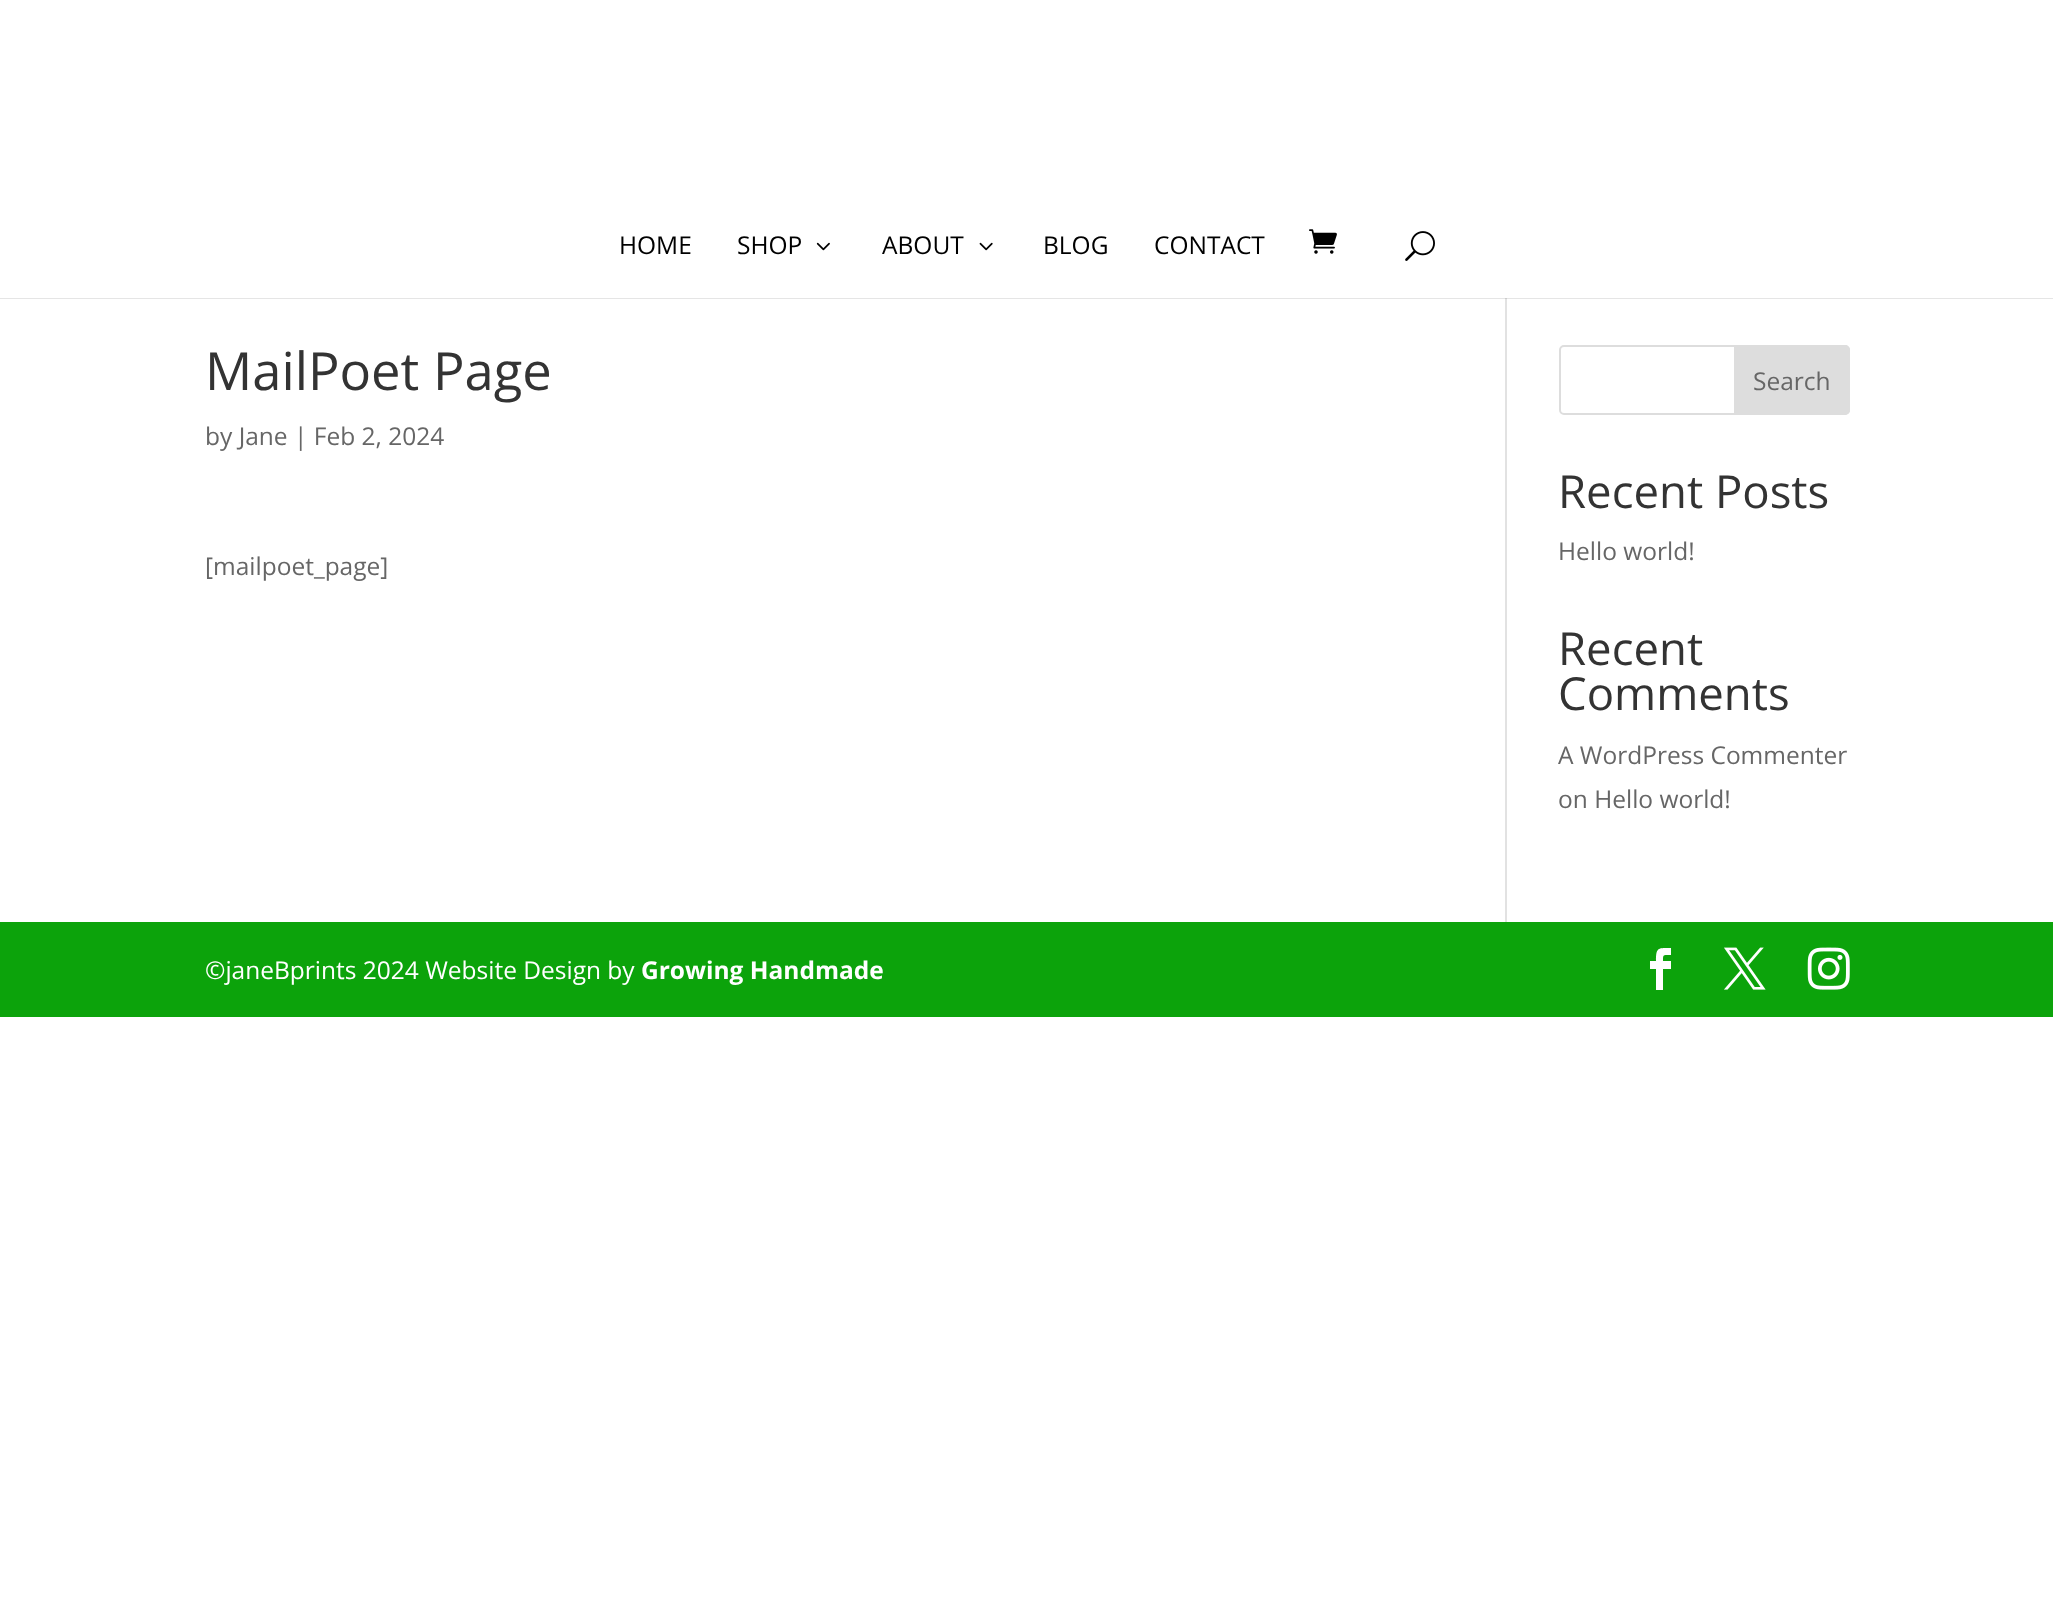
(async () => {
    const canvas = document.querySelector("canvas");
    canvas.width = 2053;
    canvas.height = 1603;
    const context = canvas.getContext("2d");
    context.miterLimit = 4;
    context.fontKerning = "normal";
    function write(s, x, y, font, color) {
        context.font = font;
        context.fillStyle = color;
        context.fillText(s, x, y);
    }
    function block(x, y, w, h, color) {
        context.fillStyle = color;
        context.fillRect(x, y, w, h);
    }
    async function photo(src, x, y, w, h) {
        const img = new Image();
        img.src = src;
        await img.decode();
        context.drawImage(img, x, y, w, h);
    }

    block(0, 0, 2053, 1603, "rgb(255, 255, 255)");
    block(1505, 298, 2, 624, "rgb(226, 226, 226)");
    context.fillStyle = "rgba(0, 0, 0, 0.1)";
    context.beginPath();
    context.moveTo(0, 298);
    context.lineTo(0, 299);
    context.lineTo(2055, 299);
    context.lineTo(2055, 2);
    context.lineTo(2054, 2);
    context.lineTo(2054, 298);
    context.closePath();
    context.fill();
    write("HOME", 619, 254, "24.5px Open Sans", "rgb(0, 0, 0)");
    write("SHOP", 737, 254, "24.5px Open Sans", "rgb(0, 0, 0)");
    await photo("media/1.png", 816, 242, 14, 9);
    write("ABOUT", 882, 254, "24.5px Open Sans", "rgb(0, 0, 0)");
    await photo("media/2.png", 979, 242, 14, 9);
    write("BLOG", 1043, 254, "24.5px Open Sans", "rgb(0, 0, 0)");
    write("CONTACT", 1154, 254, "24.5px Open Sans", "rgb(0, 0, 0)");
    await photo("media/3.png", 1309, 229, 28, 25);
    await photo("media/4.png", 1405, 231, 30, 30);
    write("MailPoet Page", 205, 390, "52.5px Open Sans", "rgb(51, 51, 51)");
    write("by Jane | Feb 2, 2024", 205, 445, "24.5px Open Sans", "rgb(102, 102, 102)");
    write("[mailpoet_page]", 205, 575, "24.5px Open Sans", "rgb(102, 102, 102)");
    context.beginPath();
    context.roundRect(1560, 346, 289, 68, 4);
    context.strokeStyle = "rgb(221, 221, 221)";
    context.lineWidth = 2;
    context.stroke();
    context.fillStyle = "rgb(221, 221, 221)";
    context.beginPath();
    context.roundRect(1735, 346, 114, 68, [0, 4, 4, 0]);
    context.fill();
    context.stroke();
    write("Search", 1753, 390, "24.5px Open Sans", "rgb(102, 102, 102)");
    write("Recent Posts", 1558, 508, "45.5px Open Sans", "rgb(51, 51, 51)");
    write("Hello world!", 1558, 560, "24.5px Open Sans", "rgb(102, 102, 102)");
    write("Recent", 1558, 665, "45.5px Open Sans", "rgb(51, 51, 51)");
    write("Comments", 1558, 710, "45.5px Open Sans", "rgb(51, 51, 51)");
    write("A WordPress Commenter", 1558, 764, "24.5px Open Sans", "rgb(102, 102, 102)");
    write("on Hello world!", 1558, 808, "24.5px Open Sans", "rgb(102, 102, 102)");
    block(0, 922, 2053, 95, "rgb(12, 163, 11)");
    write("©janeBprints 2024 Website Design by", 205, 979, "24.5px Open Sans", "rgb(255, 255, 255)");
    write("Growing Handmade", 641, 979, "bold 24.5px Open Sans", "rgb(255, 255, 255)");
    context.beginPath();
    context.moveTo(1656, 990);
    context.lineTo(1663, 990);
    context.lineTo(1663, 969);
    context.lineTo(1671, 969);
    context.lineTo(1671, 961);
    context.lineTo(1663, 961);
    context.bezierCurveTo(1663, 954, 1663, 955, 1671, 955);
    context.lineTo(1671, 948);
    context.bezierCurveTo(1658, 948, 1656, 947, 1656, 961);
    context.lineTo(1650, 961);
    context.lineTo(1650, 969);
    context.lineTo(1656, 969);
    context.closePath();
    context.fill();
    await photo("media/5.png", 1724, 947, 42, 43);
    await photo("media/6.png", 1807, 947, 43, 43);
})();
